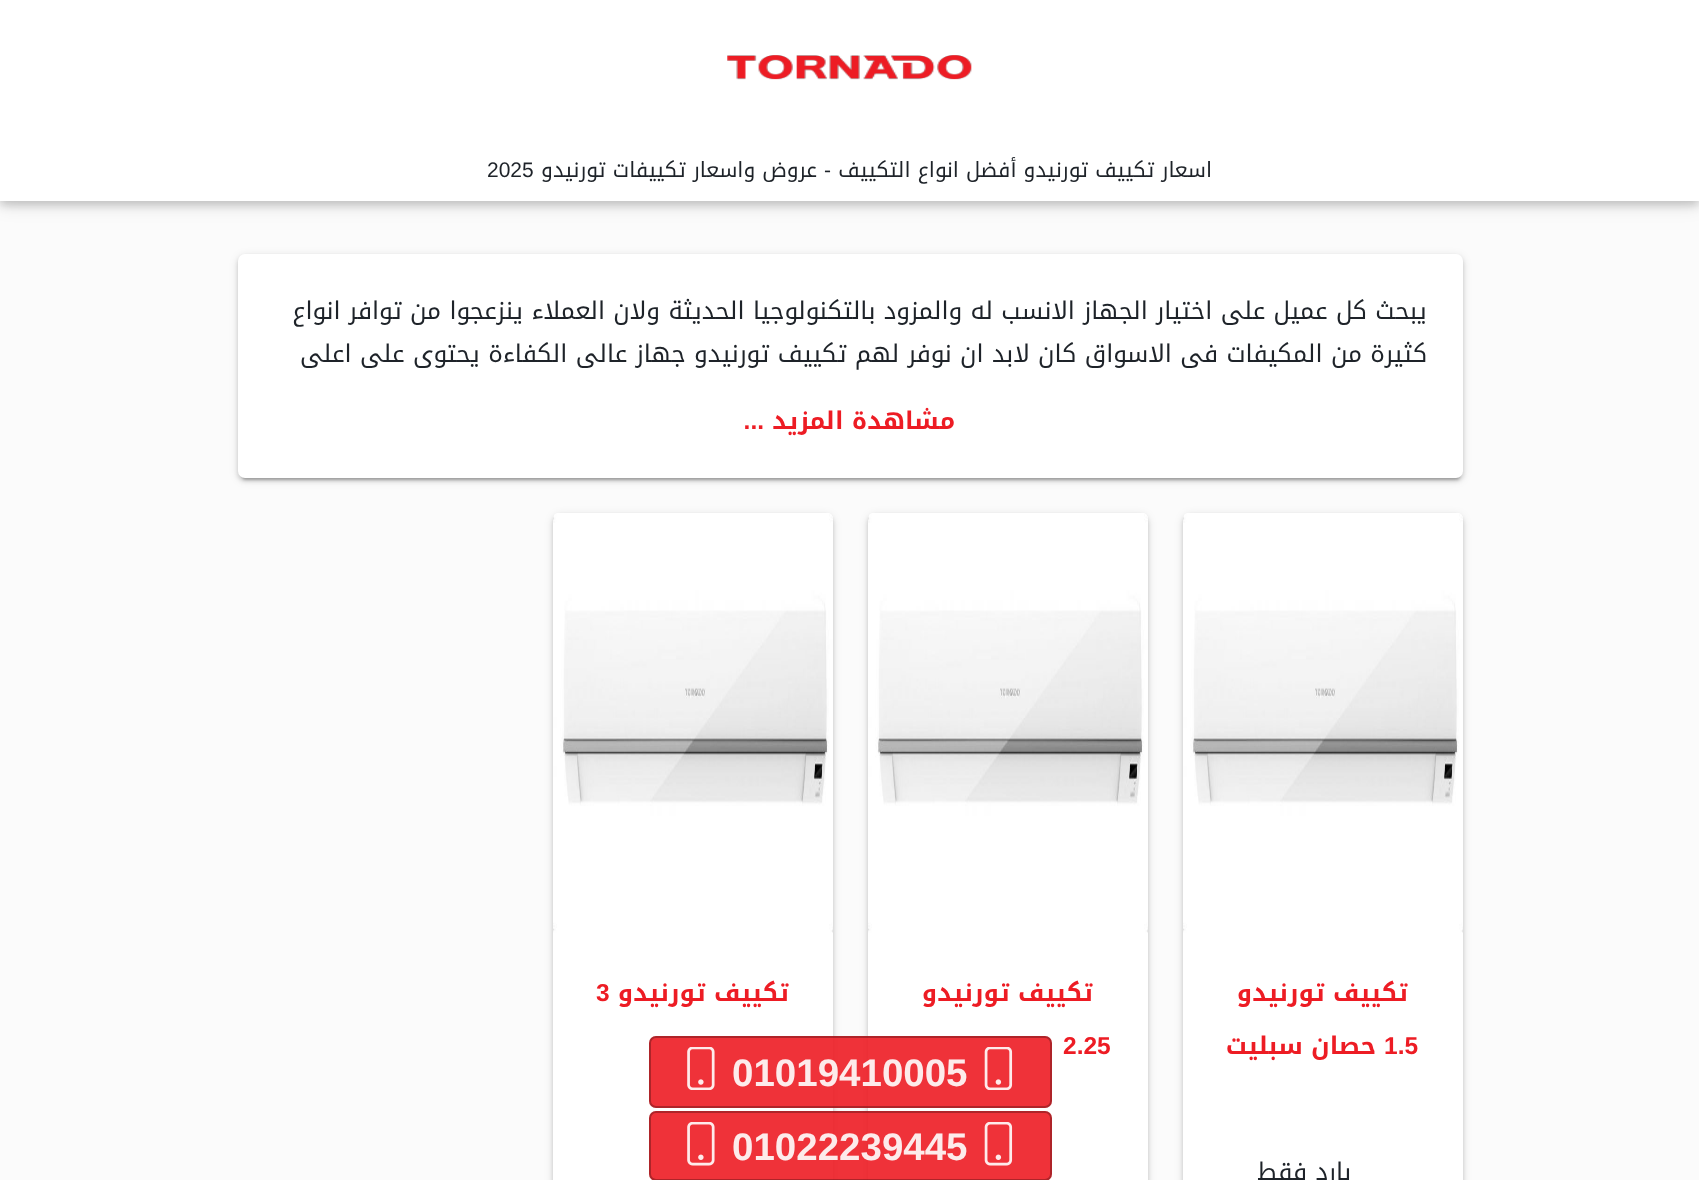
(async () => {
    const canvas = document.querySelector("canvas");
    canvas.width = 1699;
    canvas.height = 1180;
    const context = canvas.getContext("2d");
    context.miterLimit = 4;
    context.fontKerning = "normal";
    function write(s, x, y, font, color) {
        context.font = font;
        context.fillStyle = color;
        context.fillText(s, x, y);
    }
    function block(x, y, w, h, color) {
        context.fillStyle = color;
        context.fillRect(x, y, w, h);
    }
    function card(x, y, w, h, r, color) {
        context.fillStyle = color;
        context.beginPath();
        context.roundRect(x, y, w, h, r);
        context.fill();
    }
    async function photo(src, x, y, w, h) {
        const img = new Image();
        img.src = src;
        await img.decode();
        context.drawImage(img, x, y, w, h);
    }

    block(0, 0, 1699, 1180, "rgb(251, 251, 251)");
    context.fillStyle = "rgba(0, 0, 0, 0.12)";
    context.filter = "blur(9px)";
    context.beginPath();
    context.rect(0, 4, 1699, 201);
    context.fill();
    context.filter = "none";
    context.fillStyle = "rgba(0, 0, 0, 0.16)";
    context.filter = "blur(4.5px)";
    context.beginPath();
    context.rect(0, 4, 1699, 201);
    context.fill();
    context.filter = "none";
    block(0, 0, 1699, 201, "rgb(255, 255, 255)");
    await photo("media/1.png", 727, 55, 245, 25);
    context.direction = "rtl";
    write("اسعار تكييف تورنيدو أفضل انواع التكييف", 1212, 177, "21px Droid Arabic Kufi", "rgb(30, 35, 41)");
    write("-", 831, 177, "21px Liberation Sans", "rgb(30, 35, 41)");
    write("عروض واسعار تكييفات تورنيدو", 817, 177, "21px Droid Arabic Kufi", "rgb(30, 35, 41)");
    context.direction = "ltr";
    write("2025", 487, 177, "21px Liberation Sans", "rgb(30, 35, 41)");
    context.fillStyle = "rgba(0, 0, 0, 0.12)";
    context.filter = "blur(4.5px)";
    context.beginPath();
    context.roundRect(238, 256, 1225, 224, 7);
    context.fill();
    context.filter = "none";
    context.fillStyle = "rgba(0, 0, 0, 0.2)";
    context.filter = "blur(1px)";
    context.beginPath();
    context.roundRect(242, 263, 1218, 217, 4);
    context.fill();
    context.filter = "none";
    context.fillStyle = "rgba(0, 0, 0, 0.14)";
    context.filter = "blur(2px)";
    context.beginPath();
    context.roundRect(238, 257, 1225, 224, 7);
    context.fill();
    context.filter = "none";
    card(238, 254, 1225, 224, 7, "rgb(255, 255, 255)");
    context.direction = "rtl";
    write("يبحث كل عميل على اختيار الجهاز الانسب له والمزود بالتكنولوجيا الحديثة ولان العملاء ينزعجوا من توافر انواع", 1427, 319, "24.5px Droid Arabic Kufi", "rgb(30, 35, 41)");
    write("كثيرة من المكيفات فى الاسواق كان لابد ان نوفر لهم تكييف تورنيدو جهاز عالى الكفاءة يحتوى على اعلى", 1427, 362, "24.5px Droid Arabic Kufi", "rgb(30, 35, 41)");
    write("مشاهدة المزيد", 955, 429, "bold 24.5px Droid Arabic Kufi", "rgb(237, 28, 36)");
    write("...", 764, 429, "bold 24.5px Liberation Sans", "rgb(237, 28, 36)");
    context.fillStyle = "rgba(0, 0, 0, 0.12)";
    context.filter = "blur(4.5px)";
    context.beginPath();
    context.roundRect(1183, 515, 280, 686, 7);
    context.fill();
    context.filter = "none";
    context.fillStyle = "rgba(0, 0, 0, 0.14)";
    context.filter = "blur(2px)";
    context.beginPath();
    context.roundRect(1183, 516, 280, 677, 7);
    context.fill();
    context.filter = "none";
    card(1183, 513, 280, 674, 7, "rgb(255, 255, 255)");
    await photo("media/2.png", 1183, 513, 280, 420);
    write("تكييف تورنيدو", 1408, 1001, "bold 24.5px Droid Arabic Kufi", "rgb(237, 28, 36)");
    context.direction = "ltr";
    write("1.5", 1384, 1054, "bold 24.5px Liberation Sans", "rgb(237, 28, 36)");
    context.direction = "rtl";
    write("حصان سبليت", 1376, 1054, "bold 24.5px Droid Arabic Kufi", "rgb(237, 28, 36)");
    write("بارد فقط", 1351, 1180, "24.5px Droid Arabic Kufi", "rgb(30, 35, 41)");
    context.fillStyle = "rgba(0, 0, 0, 0.12)";
    context.filter = "blur(4.5px)";
    context.beginPath();
    context.roundRect(868, 515, 280, 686, 7);
    context.fill();
    context.filter = "none";
    context.fillStyle = "rgba(0, 0, 0, 0.14)";
    context.filter = "blur(2px)";
    context.beginPath();
    context.roundRect(868, 516, 280, 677, 7);
    context.fill();
    context.filter = "none";
    card(868, 513, 280, 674, 7, "rgb(255, 255, 255)");
    await photo("media/3.png", 868, 513, 280, 420);
    write("تكييف تورنيدو", 1093, 1001, "bold 24.5px Droid Arabic Kufi", "rgb(237, 28, 36)");
    context.direction = "ltr";
    write("2.25", 1063, 1054, "bold 24.5px Liberation Sans", "rgb(237, 28, 36)");
    context.fillStyle = "rgba(0, 0, 0, 0.12)";
    context.filter = "blur(4.5px)";
    context.beginPath();
    context.roundRect(553, 515, 280, 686, 7);
    context.fill();
    context.filter = "none";
    context.fillStyle = "rgba(0, 0, 0, 0.14)";
    context.filter = "blur(2px)";
    context.beginPath();
    context.roundRect(553, 516, 280, 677, 7);
    context.fill();
    context.filter = "none";
    card(553, 513, 280, 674, 7, "rgb(255, 255, 255)");
    await photo("media/4.png", 553, 513, 280, 420);
    context.direction = "rtl";
    write("تكييف تورنيدو", 789, 1001, "bold 24.5px Droid Arabic Kufi", "rgb(237, 28, 36)");
    context.direction = "ltr";
    write("3", 596, 1001, "bold 24.5px Liberation Sans", "rgb(237, 28, 36)");
    card(649, 1036, 403, 72, 7, "rgba(237, 28, 36, 0.9)");
    context.beginPath();
    context.roundRect(650, 1037, 401, 70, 6);
    context.strokeStyle = "rgba(0, 0, 0, 0.27)";
    context.lineWidth = 2;
    context.stroke();
    await photo("media/5.png", 984, 1047, 29, 43);
    write("01019410005", 732, 1086, "bold 38.5px Liberation Sans", "rgb(253, 235, 235)");
    await photo("media/6.png", 687, 1047, 28, 43);
    card(649, 1111, 403, 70, 7, "rgba(237, 28, 36, 0.9)");
    context.beginPath();
    context.roundRect(650, 1112, 401, 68, 6);
    context.stroke();
    await photo("media/7.png", 984, 1122, 29, 44);
    write("01022239445", 732, 1160, "bold 38.5px Liberation Sans", "rgb(253, 235, 235)");
    await photo("media/8.png", 687, 1122, 28, 44);
})();
